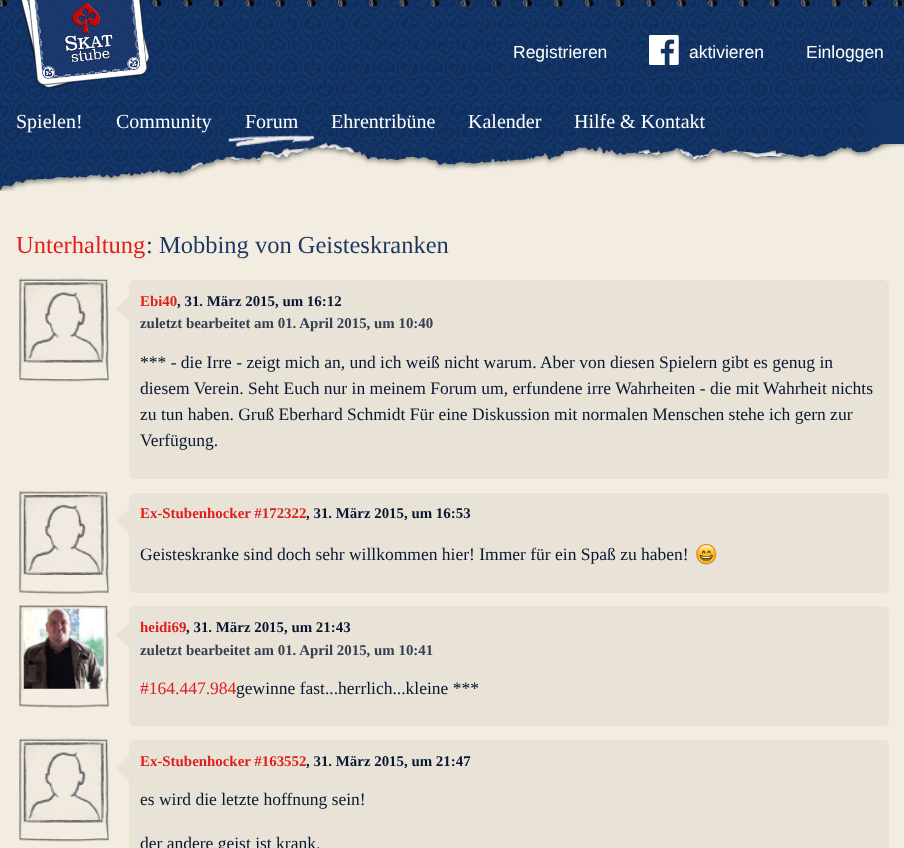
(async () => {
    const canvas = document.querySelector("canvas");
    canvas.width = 904;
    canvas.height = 848;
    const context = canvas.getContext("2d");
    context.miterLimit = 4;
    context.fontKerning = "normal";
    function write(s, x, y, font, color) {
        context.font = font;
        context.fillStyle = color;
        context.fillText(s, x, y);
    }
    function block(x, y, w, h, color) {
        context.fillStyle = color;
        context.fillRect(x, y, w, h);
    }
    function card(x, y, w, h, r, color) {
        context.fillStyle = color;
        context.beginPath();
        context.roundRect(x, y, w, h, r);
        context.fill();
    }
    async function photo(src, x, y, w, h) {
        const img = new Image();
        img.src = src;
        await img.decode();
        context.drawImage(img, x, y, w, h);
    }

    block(0, 0, 904, 848, "rgb(255, 255, 255)");
    await photo("media/1.png", 0, 0, 904, 191);
    await photo("media/2.png", 20, 0, 129, 88);
    write("Registrieren", 513, 58, "17.5px Liberation Sans", "rgb(255, 255, 255)");
    await photo("media/3.png", 649, 35, 30, 30);
    write("aktivieren", 689, 58, "17.5px Liberation Sans", "rgb(255, 255, 255)");
    write("Einloggen", 806, 58, "17.5px Liberation Sans", "rgb(255, 255, 255)");
    write("Spielen!", 16, 128, "20px Liberation Serif", "rgb(255, 255, 255)");
    write("Community", 116, 128, "20px Liberation Serif", "rgb(255, 255, 255)");
    await photo("media/4.png", 228, 134, 86, 13);
    write("Forum", 245, 128, "20px Liberation Serif", "rgb(255, 255, 255)");
    write("Ehrentribüne", 331, 128, "20px Liberation Serif", "rgb(255, 255, 255)");
    write("Kalender", 468, 128, "20px Liberation Serif", "rgb(255, 255, 255)");
    write("Hilfe & Kontakt", 574, 128, "20px Liberation Serif", "rgb(255, 255, 255)");
    block(0, 191, 904, 657, "rgb(242, 236, 225)");
    write("Unterhaltung", 16, 253, "24.5px Liberation Serif", "rgb(222, 31, 28)");
    write(": Mobbing von Geisteskranken", 146, 253, "24.5px Liberation Serif", "rgb(29, 57, 97)");
    await photo("media/5.png", 19, 278, 90, 104);
    await photo("media/6.png", 23, 282, 81, 81);
    card(129, 280, 760, 199, 6, "rgb(232, 226, 215)");
    context.beginPath();
    context.moveTo(129, 296);
    context.lineTo(129, 321);
    context.lineTo(116, 309);
    context.closePath();
    context.fill();
    write("Ebi40", 140, 306, "bold 14.9px Liberation Serif", "rgb(222, 31, 28)");
    write(", 31. März 2015, um 16:12", 177, 306, "bold 14.9px Liberation Serif", "rgb(8, 23, 49)");
    write("zuletzt bearbeitet am 01. April 2015, um 10:40", 140, 328, "bold 14.9px Liberation Serif", "rgb(53, 64, 82)");
    write("*** - die Irre - zeigt mich an, und ich weiß nicht warum. Aber von diesen Spielern gibt es genug in", 140, 368, "17.5px Liberation Serif", "rgb(8, 23, 49)");
    write("diesem Verein. Seht Euch nur in meinem Forum um, erfundene irre Wahrheiten - die mit Wahrheit nichts", 140, 394, "17.5px Liberation Serif", "rgb(8, 23, 49)");
    write("zu tun haben. Gruß Eberhard Schmidt Für eine Diskussion mit normalen Menschen stehe ich gern zur", 140, 420, "17.5px Liberation Serif", "rgb(8, 23, 49)");
    write("Verfügung.", 140, 446, "17.5px Liberation Serif", "rgb(8, 23, 49)");
    await photo("media/7.png", 19, 491, 90, 103);
    await photo("media/8.png", 23, 495, 81, 80);
    card(129, 493, 760, 100, 6, "rgb(232, 226, 215)");
    context.beginPath();
    context.moveTo(129, 509);
    context.lineTo(129, 534);
    context.lineTo(116, 521);
    context.closePath();
    context.fill();
    write("Ex-Stubenhocker #172322", 140, 518, "bold 14.9px Liberation Serif", "rgb(222, 31, 28)");
    write(", 31. März 2015, um 16:53", 306, 518, "bold 14.9px Liberation Serif", "rgb(8, 23, 49)");
    write("Geisteskranke sind doch sehr willkommen hier! Immer für ein Spaß zu haben!", 140, 560, "17.5px Liberation Serif", "rgb(8, 23, 49)");
    await photo("media/9.png", 696, 544, 21, 21);
    await photo("media/10.png", 19, 605, 90, 103);
    await photo("media/11.png", 23, 608, 81, 81);
    card(129, 606, 760, 120, 6, "rgb(232, 226, 215)");
    context.beginPath();
    context.moveTo(129, 622.5);
    context.lineTo(129, 647.5);
    context.lineTo(116, 635);
    context.closePath();
    context.fill();
    write("heidi69", 140, 632, "bold 14.9px Liberation Serif", "rgb(222, 31, 28)");
    write(", 31. März 2015, um 21:43", 186, 632, "bold 14.9px Liberation Serif", "rgb(8, 23, 49)");
    write("zuletzt bearbeitet am 01. April 2015, um 10:41", 140, 655, "bold 14.9px Liberation Serif", "rgb(53, 64, 82)");
    write("#164.447.984", 140, 694, "17.5px Liberation Serif", "rgb(222, 31, 28)");
    write("gewinne fast...herrlich...kleine ***", 236, 694, "17.5px Liberation Serif", "rgb(8, 23, 49)");
    await photo("media/5.png", 19, 738, 90, 104);
    await photo("media/12.png", 23, 742, 81, 81);
    card(129, 740, 760, 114, 6, "rgb(232, 226, 215)");
    context.beginPath();
    context.moveTo(129, 756);
    context.lineTo(129, 781);
    context.lineTo(116, 769);
    context.closePath();
    context.fill();
    write("Ex-Stubenhocker #163552", 140, 766, "bold 14.9px Liberation Serif", "rgb(222, 31, 28)");
    write(", 31. März 2015, um 21:47", 306, 766, "bold 14.9px Liberation Serif", "rgb(8, 23, 49)");
    write("es wird die letzte hoffnung sein!", 140, 805, "17.5px Liberation Serif", "rgb(8, 23, 49)");
    write("der andere geist ist krank.", 140, 849, "17.5px Liberation Serif", "rgb(8, 23, 49)");
})();
